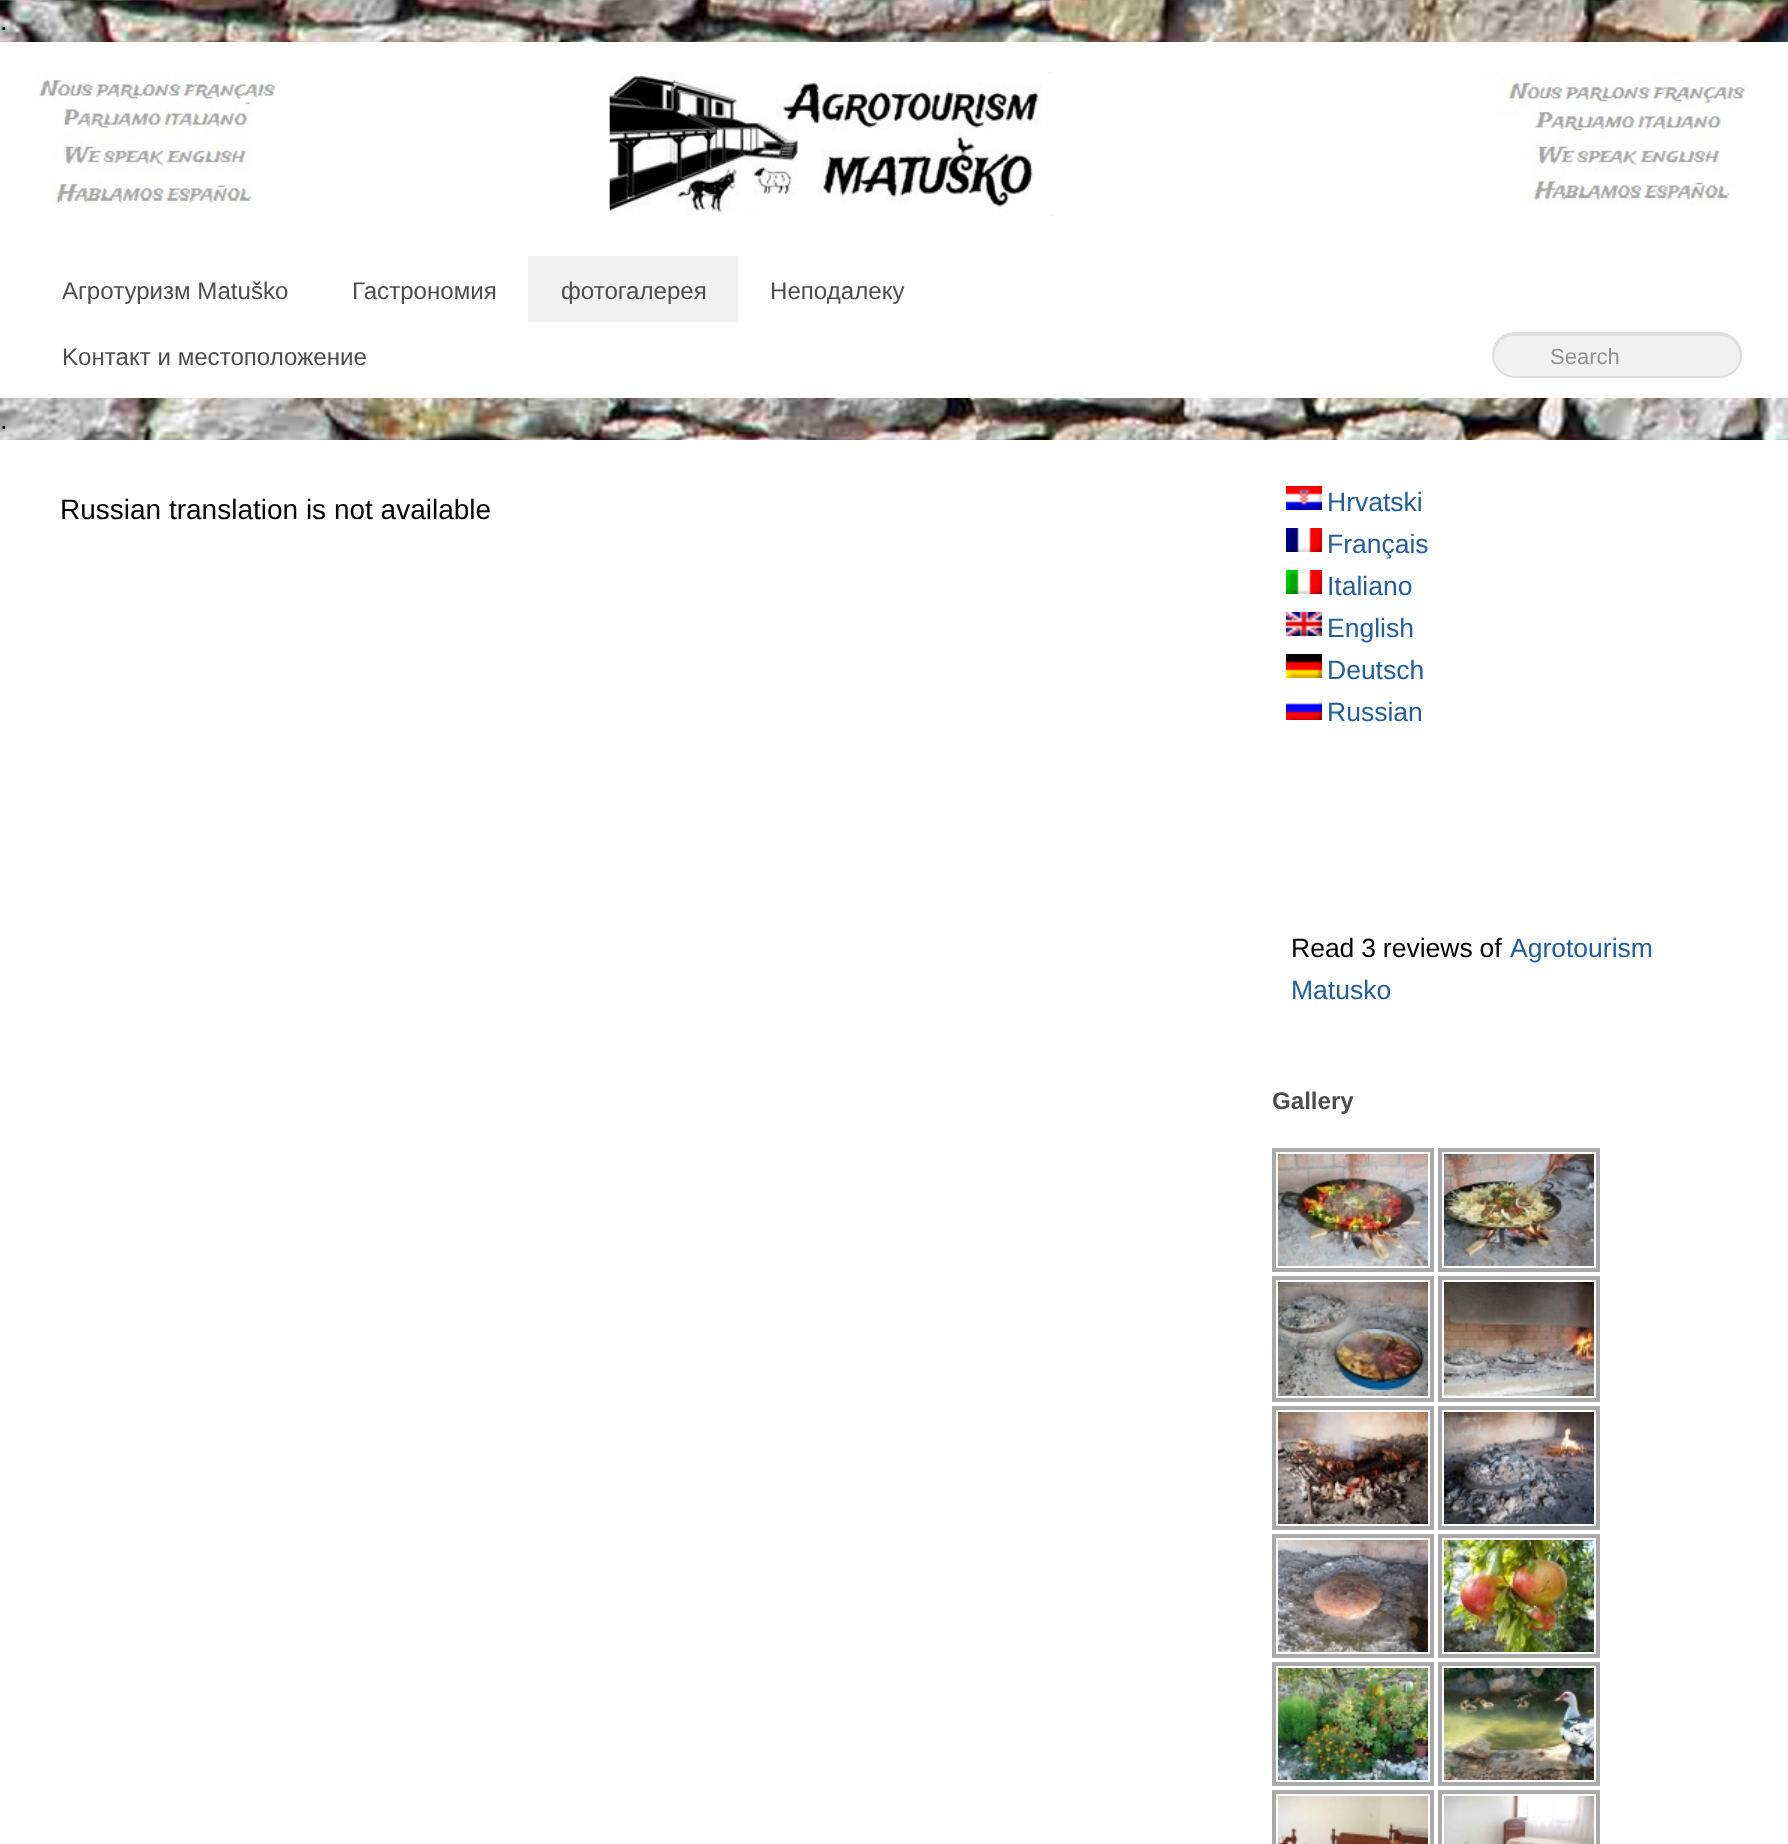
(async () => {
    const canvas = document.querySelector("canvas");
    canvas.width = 1788;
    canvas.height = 1844;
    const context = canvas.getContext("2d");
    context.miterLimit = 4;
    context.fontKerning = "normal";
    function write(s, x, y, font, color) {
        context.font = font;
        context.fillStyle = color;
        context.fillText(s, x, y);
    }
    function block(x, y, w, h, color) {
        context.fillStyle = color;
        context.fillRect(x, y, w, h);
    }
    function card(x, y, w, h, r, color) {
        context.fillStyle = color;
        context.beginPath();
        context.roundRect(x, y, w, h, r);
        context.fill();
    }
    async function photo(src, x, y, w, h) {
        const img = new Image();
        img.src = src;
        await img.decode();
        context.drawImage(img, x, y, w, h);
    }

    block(0, 0, 1788, 1844, "rgb(255, 255, 255)");
    await photo("media/1.png", 0, 0, 1788, 440);
    write(".", 0, 30, "28px Liberation Sans", "rgb(0, 0, 0)");
    block(0, 42, 1788, 356, "rgb(255, 255, 255)");
    await photo("media/2.png", 30, 72, 1718, 144);
    write("Aгротуризм Matuško", 62, 299, "24.1px Liberation Sans", "rgb(77, 77, 77)");
    write("Гастрономия", 352, 299, "24.1px Liberation Sans", "rgb(77, 77, 77)");
    block(528, 256, 210, 66, "rgb(242, 242, 242)");
    write("фотогалерея", 561, 299, "24.1px Liberation Sans", "rgb(77, 77, 77)");
    write("Hеподалеку", 770, 299, "24.1px Liberation Sans", "rgb(77, 77, 77)");
    write("Kонтакт и местоположение", 62, 365, "24.1px Liberation Sans", "rgb(77, 77, 77)");
    card(1492, 332, 250, 46, 23, "rgb(242, 242, 242)");
    context.fillStyle = "rgb(224, 224, 224)";
    context.beginPath();
    context.moveTo(1515, 336);
    context.lineTo(1719, 336);
    context.bezierCurveTo(1731, 336, 1739, 344, 1740, 356);
    context.lineTo(1740, 355);
    context.bezierCurveTo(1740, 343, 1731, 334, 1719, 334);
    context.lineTo(1515, 334);
    context.bezierCurveTo(1503, 334, 1494, 343, 1494, 355);
    context.lineTo(1494, 356);
    context.bezierCurveTo(1495, 344, 1503, 336, 1515, 336);
    context.closePath();
    context.fill();
    context.beginPath();
    context.roundRect(1493, 333, 248, 44, 22);
    context.strokeStyle = "rgb(222, 222, 222)";
    context.lineWidth = 2;
    context.stroke();
    write("Search", 1550, 364, "22px Liberation Sans", "rgb(145, 145, 145)");
    write(".", 0, 429, "28px Liberation Sans", "rgb(0, 0, 0)");
    write("Russian translation is not available", 60, 519, "28px Liberation Sans", "rgb(0, 0, 0)");
    await photo("media/3.png", 1286, 486, 36, 24);
    write("Hrvatski", 1327, 511, "26.5px Liberation Sans", "rgb(34, 94, 155)");
    await photo("media/4.png", 1286, 528, 36, 24);
    write("Français", 1327, 553, "26.5px Liberation Sans", "rgb(34, 94, 155)");
    await photo("media/5.png", 1286, 570, 36, 24);
    write("Italiano", 1327, 595, "26.5px Liberation Sans", "rgb(34, 94, 155)");
    await photo("media/6.png", 1286, 612, 36, 24);
    write("English", 1327, 637, "26.5px Liberation Sans", "rgb(34, 94, 155)");
    await photo("media/7.png", 1286, 654, 36, 24);
    write("Deutsch", 1327, 679, "26.5px Liberation Sans", "rgb(34, 94, 155)");
    await photo("media/8.png", 1286, 699, 36, 21);
    write("Russian", 1327, 721, "26.5px Liberation Sans", "rgb(34, 94, 155)");
    context.wordSpacing = "-0.5px";
    write("Read 3 reviews of", 1291, 957, "26.5px Liberation Sans", "rgb(0, 0, 0)");
    context.wordSpacing = "0px";
    write("Agrotourism", 1510, 957, "26.5px Liberation Sans", "rgb(34, 94, 155)");
    write("Matusko", 1291, 999, "26.5px Liberation Sans", "rgb(34, 94, 155)");
    write("Gallery", 1272, 1109, "bold 24.1px Liberation Sans", "rgb(77, 77, 77)");
    context.strokeStyle = "rgb(169, 169, 169)";
    context.lineWidth = 4;
    context.strokeRect(1274, 1150, 158, 120);
    await photo("media/9.png", 1278, 1154, 150, 112);
    context.strokeRect(1440, 1150, 158, 120);
    await photo("media/10.png", 1444, 1154, 150, 112);
    context.strokeRect(1274, 1278, 158, 122);
    await photo("media/11.png", 1278, 1282, 150, 114);
    context.strokeRect(1440, 1278, 158, 122);
    await photo("media/12.png", 1444, 1282, 150, 114);
    context.strokeRect(1274, 1408, 158, 120);
    await photo("media/13.png", 1278, 1412, 150, 112);
    context.strokeRect(1440, 1408, 158, 120);
    await photo("media/14.png", 1444, 1412, 150, 112);
    context.strokeRect(1274, 1536, 158, 120);
    await photo("media/15.png", 1278, 1540, 150, 112);
    context.strokeRect(1440, 1536, 158, 120);
    await photo("media/16.png", 1444, 1540, 150, 112);
    context.strokeRect(1274, 1664, 158, 120);
    await photo("media/17.png", 1278, 1668, 150, 112);
    context.strokeRect(1440, 1664, 158, 120);
    await photo("media/18.png", 1444, 1668, 150, 112);
    context.strokeRect(1274, 1792, 158, 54);
    await photo("media/19.png", 1278, 1796, 150, 48);
    context.strokeRect(1440, 1792, 158, 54);
    await photo("media/20.png", 1444, 1796, 150, 48);
})();
